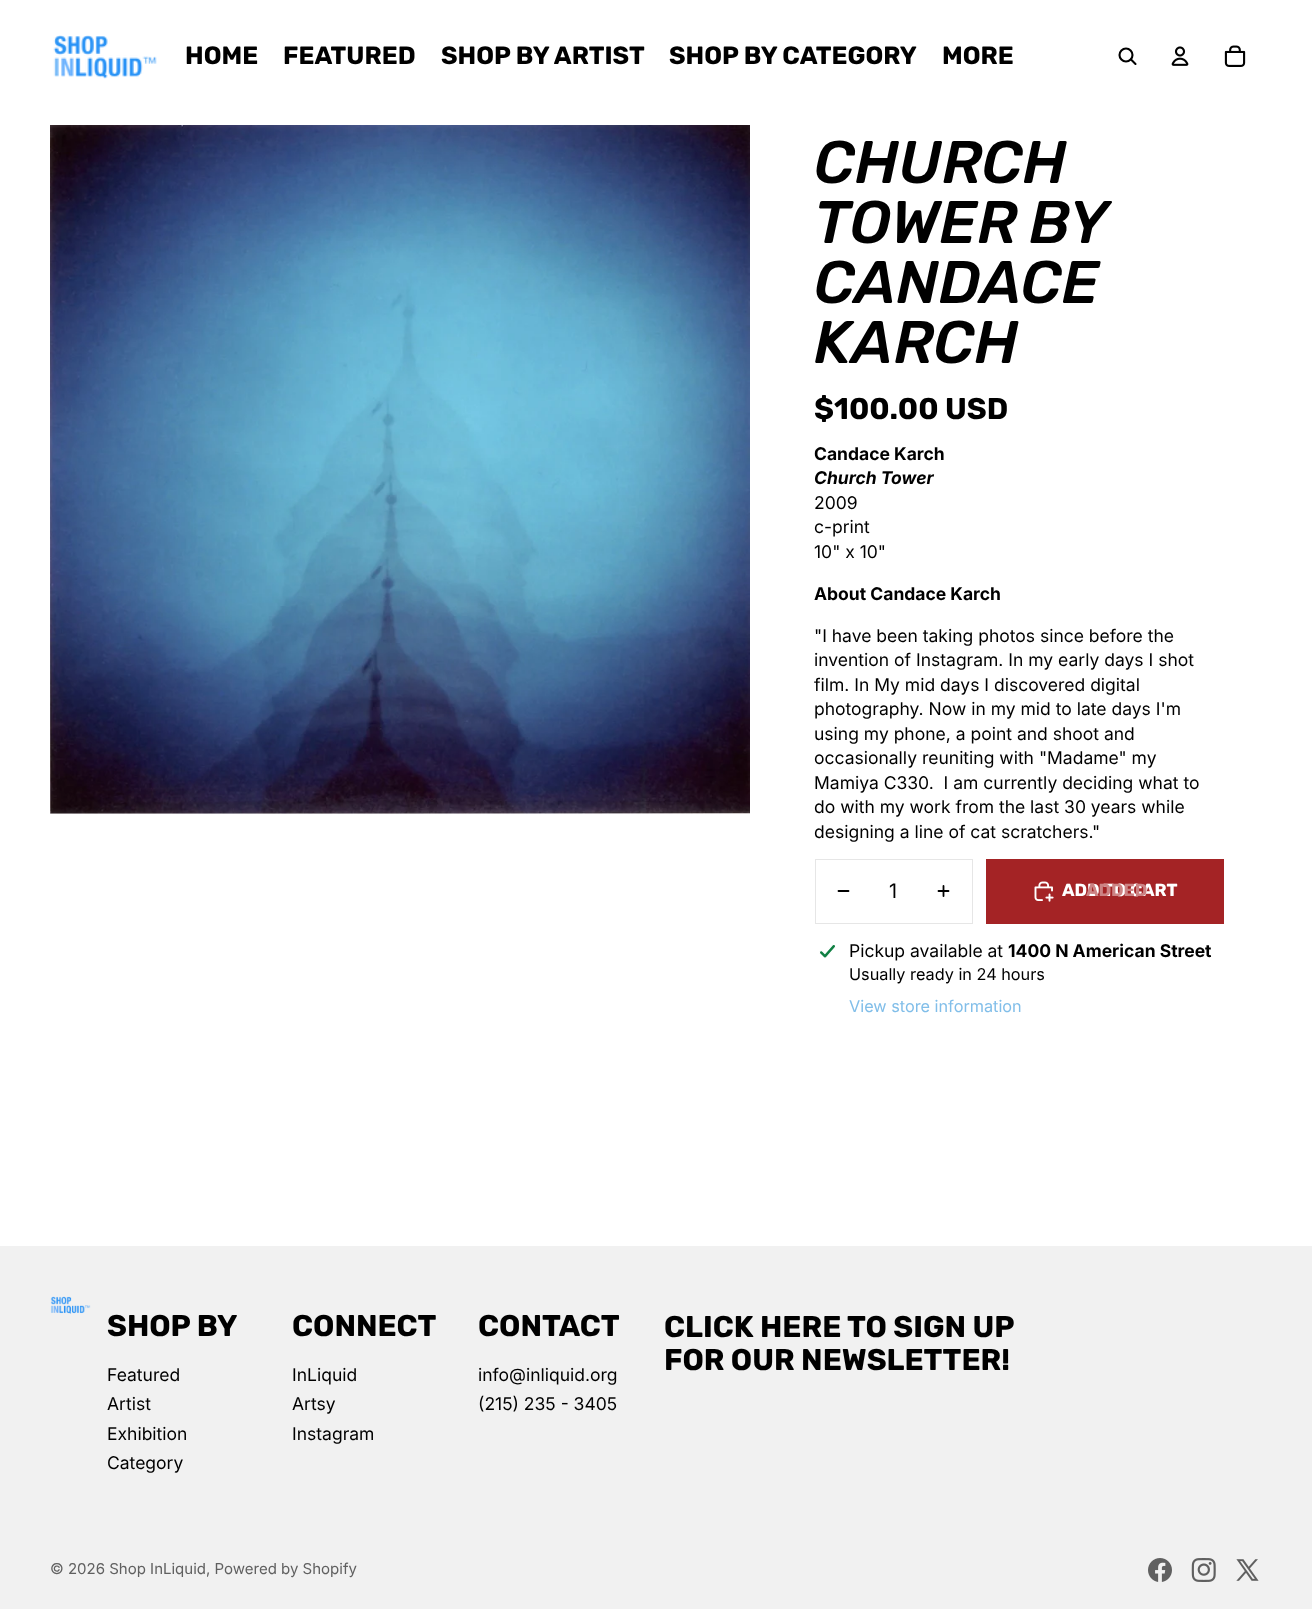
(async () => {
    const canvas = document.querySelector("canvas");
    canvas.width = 1312;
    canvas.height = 1609;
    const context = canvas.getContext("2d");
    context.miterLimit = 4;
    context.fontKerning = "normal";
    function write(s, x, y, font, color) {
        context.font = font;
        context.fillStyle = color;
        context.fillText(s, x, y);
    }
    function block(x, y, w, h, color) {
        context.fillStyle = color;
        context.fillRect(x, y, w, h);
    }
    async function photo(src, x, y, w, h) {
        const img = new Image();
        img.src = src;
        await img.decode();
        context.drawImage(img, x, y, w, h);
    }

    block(0, 0, 1312, 1609, "rgb(255, 255, 255)");
    await photo("media/1.png", 53, 35, 104, 44);
    write("HOME", 185, 64, "bold 25px Rubik", "rgb(0, 0, 0)");
    write("FEATURED", 283, 64, "bold 25px Rubik", "rgb(0, 0, 0)");
    write("SHOP BY ARTIST", 441, 64, "bold 25px Rubik", "rgb(0, 0, 0)");
    write("SHOP BY CATEGORY", 669, 64, "bold 25px Rubik", "rgb(0, 0, 0)");
    write("MORE", 942, 64, "bold 25px Rubik", "rgb(0, 0, 0)");
    context.beginPath();
    context.arc(1126, 55, 6.5, 0, Math.PI * 2);
    context.strokeStyle = "rgb(0, 0, 0)";
    context.lineWidth = 2.1;
    context.stroke();
    context.beginPath();
    context.moveTo(1131, 59.5);
    context.lineTo(1135.5, 64);
    context.lineCap = "round";
    context.lineJoin = "round";
    context.stroke();
    await photo("media/2.png", 1171, 46, 18, 20);
    await photo("media/3.png", 1224, 45, 22, 22);
    await photo("media/4.png", 50, 125, 700, 689);
    write("CHURCH", 814, 183, "italic 500 60px Rubik", "rgb(0, 0, 0)");
    context.wordSpacing = "-2px";
    write("TOWER BY", 814, 243, "italic 500 60px Rubik", "rgb(0, 0, 0)");
    context.wordSpacing = "0px";
    write("CANDACE", 814, 303, "italic 500 60px Rubik", "rgb(0, 0, 0)");
    write("KARCH", 814, 363, "italic 500 60px Rubik", "rgb(0, 0, 0)");
    write("$100.00 USD", 814, 419, "bold 30px Rubik", "rgb(0, 0, 0)");
    write("Candace Karch", 814, 460, "bold 17.5px Inter", "rgb(0, 0, 0)");
    write("Church Tower", 814, 484, "italic bold 17.5px Inter", "rgb(0, 0, 0)");
    write("2009", 814, 509, "17.5px Inter", "rgb(0, 0, 0)");
    write("c-print", 814, 533, "17.5px Inter", "rgb(0, 0, 0)");
    write("10\" x 10\"", 814, 558, "17.5px Inter", "rgb(0, 0, 0)");
    write("About Candace Karch", 814, 600, "bold 17.5px Inter", "rgb(0, 0, 0)");
    write("\"I have been taking photos since before the", 814, 642, "17.5px Inter", "rgb(0, 0, 0)");
    write("invention of Instagram. In my early days I shot", 814, 666, "17.5px Inter", "rgb(0, 0, 0)");
    write("film. In My mid days I discovered digital", 814, 691, "17.5px Inter", "rgb(0, 0, 0)");
    write("photography. Now in my mid to late days I'm", 814, 715, "17.5px Inter", "rgb(0, 0, 0)");
    write("using my phone, a point and shoot and", 814, 740, "17.5px Inter", "rgb(0, 0, 0)");
    write("occasionally reuniting with \"Madame\" my", 814, 764, "17.5px Inter", "rgb(0, 0, 0)");
    write("Mamiya C330.  I am currently deciding what to", 814, 789, "17.5px Inter", "rgb(0, 0, 0)");
    write("do with my work from the last 30 years while", 814, 813, "17.5px Inter", "rgb(0, 0, 0)");
    write("designing a line of cat scratchers.\"", 814, 838, "17.5px Inter", "rgb(0, 0, 0)");
    context.strokeStyle = "rgb(230, 230, 230)";
    context.lineWidth = 1;
    context.lineJoin = "miter";
    context.strokeRect(815.5, 859.5, 157, 64);
    context.beginPath();
    context.moveTo(838.5, 891);
    context.lineTo(848.5, 891);
    context.strokeStyle = "rgb(0, 0, 0)";
    context.lineWidth = 1.8;
    context.stroke();
    write("1", 889, 898, "20px 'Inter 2'", "rgb(0, 0, 0)");
    context.beginPath();
    context.moveTo(938.5, 891);
    context.lineTo(948.5, 891);
    context.moveTo(943.5, 886);
    context.lineTo(943.5, 896);
    context.stroke();
    block(986, 859, 238, 65, "rgb(164, 35, 37)");
    await photo("media/5.png", 1034, 881, 20, 21);
    write("ADD TO CART", 1062, 896, "bold 17.5px Rubik", "rgb(255, 255, 255)");
    write("ADDED", 1086, 896, "bold 17.5px Rubik", "rgb(204, 131, 132)");
    await photo("media/6.png", 819, 944, 17, 14);
    write("Pickup available at", 849, 957, "17.5px Inter", "rgb(0, 0, 0)");
    write("1400 N American Street", 1008, 957, "bold 17.5px Inter", "rgb(0, 0, 0)");
    write("Usually ready in 24 hours", 849, 980, "16.25px Inter", "rgb(0, 0, 0)");
    write("View store information", 849, 1012, "16.25px Inter", "rgb(129, 190, 233)");
    block(0, 1246, 1312, 363, "rgb(241, 241, 241)");
    await photo("media/7.png", 50, 1296, 41, 18);
    write("SHOP BY", 107, 1336, "bold 30px Rubik", "rgb(0, 0, 0)");
    write("Featured", 107, 1381, "17.5px Inter", "rgb(0, 0, 0)");
    write("Artist", 107, 1410, "17.5px Inter", "rgb(0, 0, 0)");
    write("Exhibition", 107, 1440, "17.5px Inter", "rgb(0, 0, 0)");
    write("Category", 107, 1469, "17.5px Inter", "rgb(0, 0, 0)");
    write("CONNECT", 292, 1336, "bold 30px Rubik", "rgb(0, 0, 0)");
    write("InLiquid", 292, 1381, "17.5px Inter", "rgb(0, 0, 0)");
    write("Artsy", 292, 1410, "17.5px Inter", "rgb(0, 0, 0)");
    write("Instagram", 292, 1440, "17.5px Inter", "rgb(0, 0, 0)");
    write("CONTACT", 478, 1336, "bold 30px Rubik", "rgb(0, 0, 0)");
    write("info@inliquid.org", 478, 1381, "17.5px Inter", "rgb(0, 0, 0)");
    write("(215) 235 - 3405", 478, 1410, "17.5px Inter", "rgb(0, 0, 0)");
    write("CLICK HERE TO SIGN UP", 664, 1337, "bold 30px Rubik", "rgb(0, 0, 0)");
    write("FOR OUR NEWSLETTER!", 664, 1370, "bold 30px Rubik", "rgb(0, 0, 0)");
    write("© 2026 Shop InLiquid, Powered by Shopify", 50, 1574, "15px Inter", "rgb(96, 96, 96)");
    await photo("media/8.png", 1148, 1558, 24, 24);
    await photo("media/9.png", 1191, 1558, 25, 24);
    await photo("media/10.png", 1236, 1559, 23, 22);
})();
